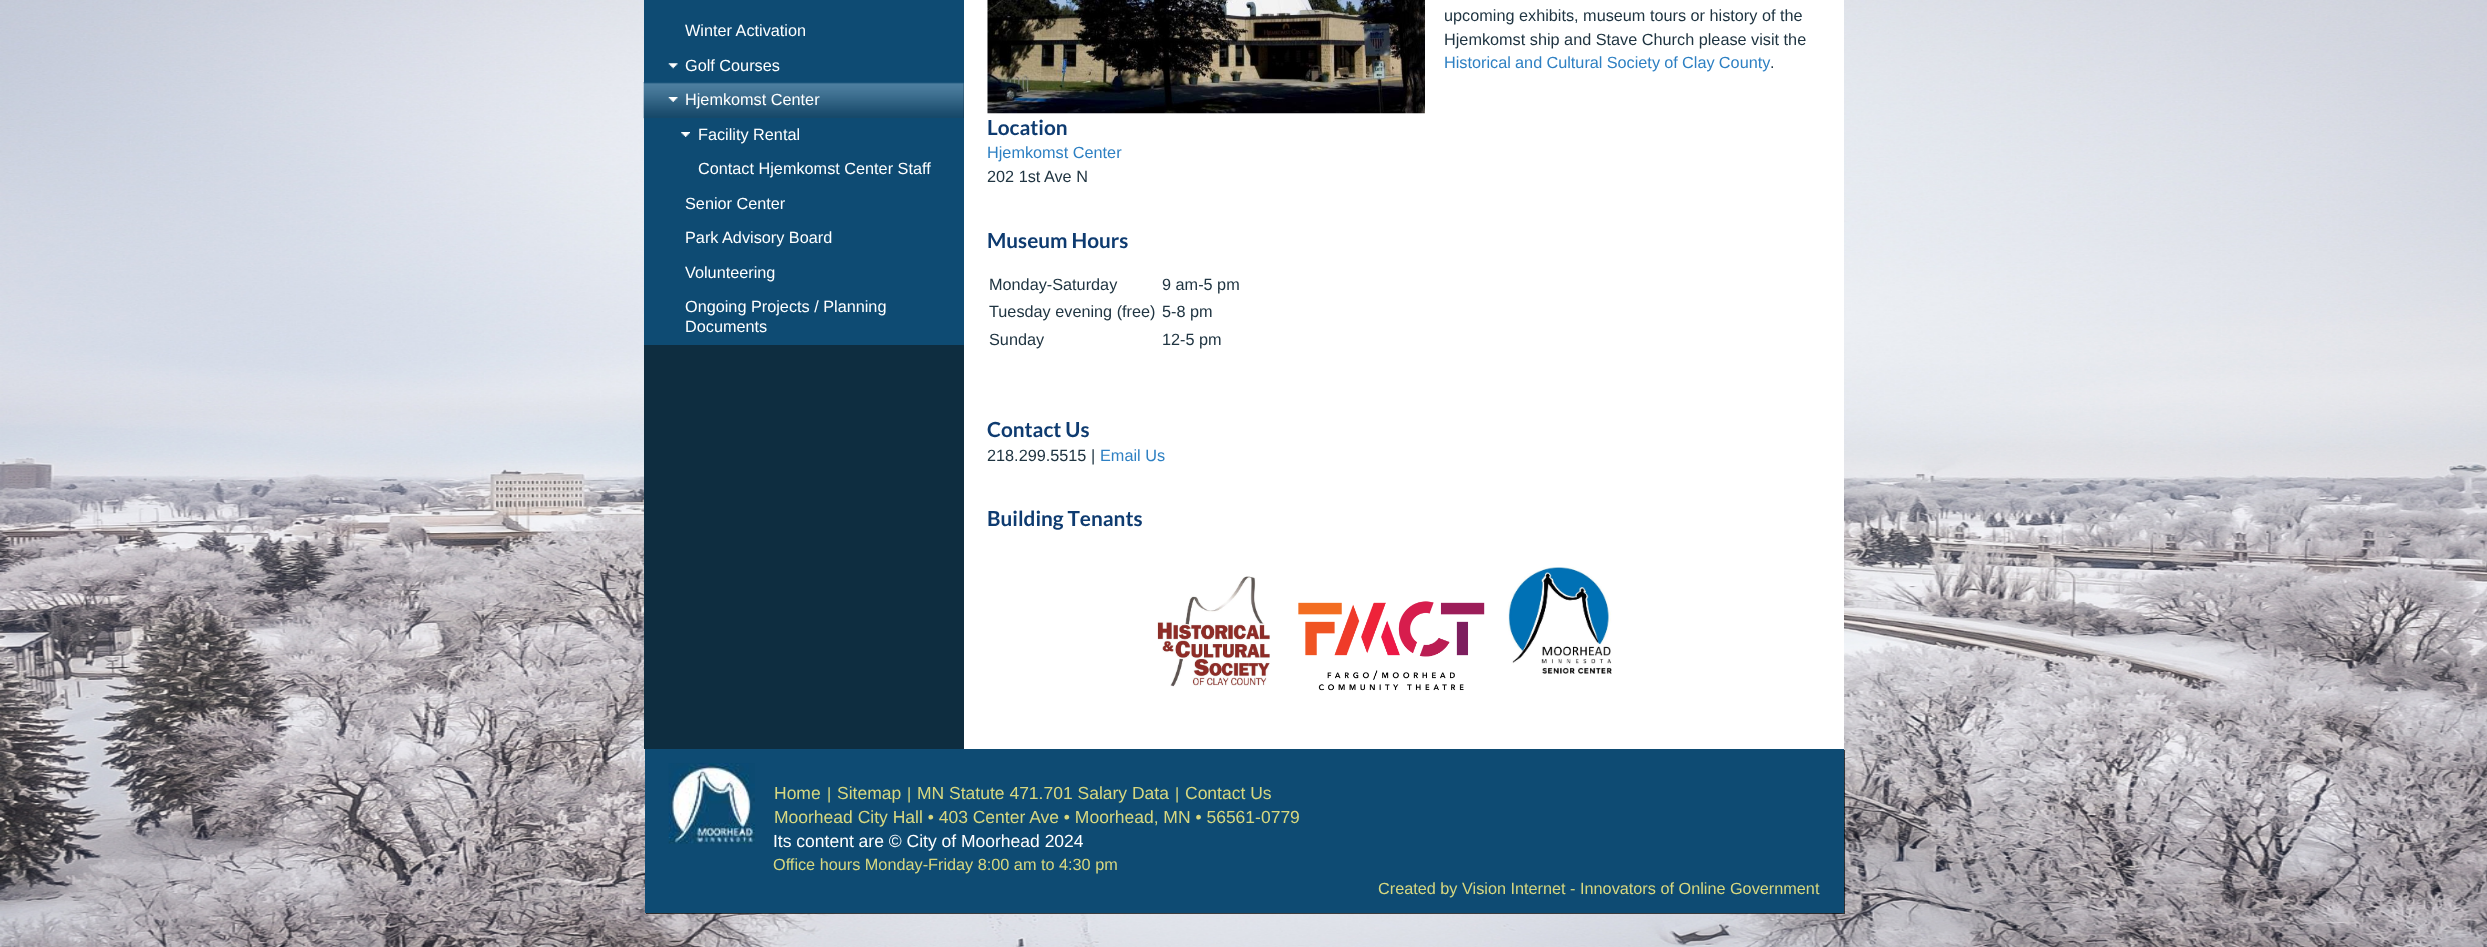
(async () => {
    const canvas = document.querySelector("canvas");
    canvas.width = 2487;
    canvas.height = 947;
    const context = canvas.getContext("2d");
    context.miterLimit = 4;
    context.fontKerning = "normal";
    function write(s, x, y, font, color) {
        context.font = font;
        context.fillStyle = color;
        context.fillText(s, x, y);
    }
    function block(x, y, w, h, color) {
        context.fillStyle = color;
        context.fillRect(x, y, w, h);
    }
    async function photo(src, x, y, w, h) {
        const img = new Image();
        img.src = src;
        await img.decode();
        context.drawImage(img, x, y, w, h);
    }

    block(0, 0, 2487, 947, "rgb(255, 255, 255)");
    await photo("media/1.png", 0, 0, 2487, 947);
    context.fillStyle = "rgba(0, 0, 0, 0.73)";
    context.filter = "blur(0.5px)";
    context.beginPath();
    context.rect(646, 750, 1199, 164);
    context.fill();
    context.filter = "none";
    block(964, 0, 880, 749, "rgb(255, 255, 255)");
    block(644, 0, 320, 84, "rgb(14, 75, 115)");
    write("Winter Activation", 685, 36, "16.25px Liberation Sans", "rgb(255, 255, 255)");
    await photo("media/2.png", 668, 63, 10, 6);
    write("Golf Courses", 685, 71, "16.25px Liberation Sans", "rgb(255, 255, 255)");
    block(644, 84, 320, 665, "rgb(14, 45, 64)");
    await photo("media/3.png", 643, 82, 321, 37);
    await photo("media/4.png", 668, 97, 10, 5);
    write("Hjemkomst Center", 685, 105, "16.25px Liberation Sans", "rgb(255, 255, 255)");
    block(644, 118, 320, 227, "rgb(14, 75, 115)");
    await photo("media/5.png", 681, 132, 9, 5);
    write("Facility Rental", 698, 140, "16.25px Liberation Sans", "rgb(255, 255, 255)");
    write("Contact Hjemkomst Center Staff", 698, 174, "16.25px Liberation Sans", "rgb(255, 255, 255)");
    write("Senior Center", 685, 209, "16.25px Liberation Sans", "rgb(255, 255, 255)");
    write("Park Advisory Board", 685, 243, "16.25px Liberation Sans", "rgb(255, 255, 255)");
    write("Volunteering", 685, 278, "16.25px Liberation Sans", "rgb(255, 255, 255)");
    write("Ongoing Projects / Planning", 685, 312, "16.25px Liberation Sans", "rgb(255, 255, 255)");
    write("Documents", 685, 332, "16.25px Liberation Sans", "rgb(255, 255, 255)");
    await photo("media/6.png", 987, 0, 438, 114);
    write("upcoming exhibits, museum tours or history of the", 1444, 21, "16.25px Liberation Sans", "rgb(32, 53, 66)");
    write("Hjemkomst ship and Stave Church please visit the", 1444, 45, "16.25px Liberation Sans", "rgb(32, 53, 66)");
    context.wordSpacing = "-0.25px";
    write("Historical and Cultural Society of Clay County", 1444, 68, "16.25px Liberation Sans", "rgb(46, 128, 195)");
    context.wordSpacing = "0px";
    write(".", 1770, 68, "16.25px Liberation Sans", "rgb(32, 53, 66)");
    write("Location", 987, 135, "bold 20.75px Lato", "rgb(14, 59, 112)");
    write("Hjemkomst Center", 987, 158, "16.25px Liberation Sans", "rgb(46, 128, 195)");
    write("202 1st Ave N", 987, 182, "16.25px Liberation Sans", "rgb(32, 53, 66)");
    write("Museum Hours", 987, 248, "bold 20.75px Lato", "rgb(14, 59, 112)");
    write("Monday-Saturday", 989, 290, "16.25px Liberation Sans", "rgb(32, 53, 66)");
    write("9 am-5 pm", 1162, 290, "16.25px Liberation Sans", "rgb(32, 53, 66)");
    write("Tuesday evening (free)", 989, 317, "16.25px Liberation Sans", "rgb(32, 53, 66)");
    write("5-8 pm", 1162, 317, "16.25px Liberation Sans", "rgb(32, 53, 66)");
    write("Sunday", 989, 345, "16.25px Liberation Sans", "rgb(32, 53, 66)");
    write("12-5 pm", 1162, 345, "16.25px Liberation Sans", "rgb(32, 53, 66)");
    write("Contact Us", 987, 437, "bold 20.75px Lato", "rgb(14, 59, 112)");
    write("218.299.5515 |", 987, 461, "16.25px Liberation Sans", "rgb(32, 53, 66)");
    write("Email Us", 1100, 461, "16.25px Liberation Sans", "rgb(46, 128, 195)");
    write("Building Tenants", 987, 526, "bold 20.75px Lato", "rgb(14, 59, 112)");
    await photo("media/7.png", 1157, 576, 113, 111);
    await photo("media/8.png", 1298, 601, 187, 90);
    await photo("media/9.png", 1508, 567, 104, 107);
    block(645, 749, 1199, 164, "rgb(14, 75, 115)");
    await photo("media/10.png", 668, 763, 87, 81);
    write("Home", 774, 799, "17.5px Liberation Sans", "rgb(215, 216, 128)");
    write("|", 827, 799, "16.25px Liberation Sans", "rgb(215, 216, 128)");
    write("Sitemap", 837, 799, "17.5px Liberation Sans", "rgb(215, 216, 128)");
    write("|", 907, 799, "16.25px Liberation Sans", "rgb(215, 216, 128)");
    write("MN Statute 471.701 Salary Data", 917, 799, "17.5px Liberation Sans", "rgb(215, 216, 128)");
    write("|", 1175, 799, "16.25px Liberation Sans", "rgb(215, 216, 128)");
    write("Contact Us", 1185, 799, "17.5px Liberation Sans", "rgb(215, 216, 128)");
    write("Moorhead City Hall • 403 Center Ave • Moorhead, MN • 56561-0779", 774, 823, "17.5px Liberation Sans", "rgb(215, 216, 128)");
    write("Its content are © City of Moorhead 2024", 773, 847, "17.5px Liberation Sans", "rgb(255, 255, 255)");
    write("Office hours Monday-Friday 8:00 am to 4:30 pm", 773, 870, "16.25px Liberation Sans", "rgb(215, 216, 128)");
    write("Created by Vision Internet - Innovators of Online Government", 1378, 894, "16.25px Liberation Sans", "rgb(215, 216, 128)");
})();
